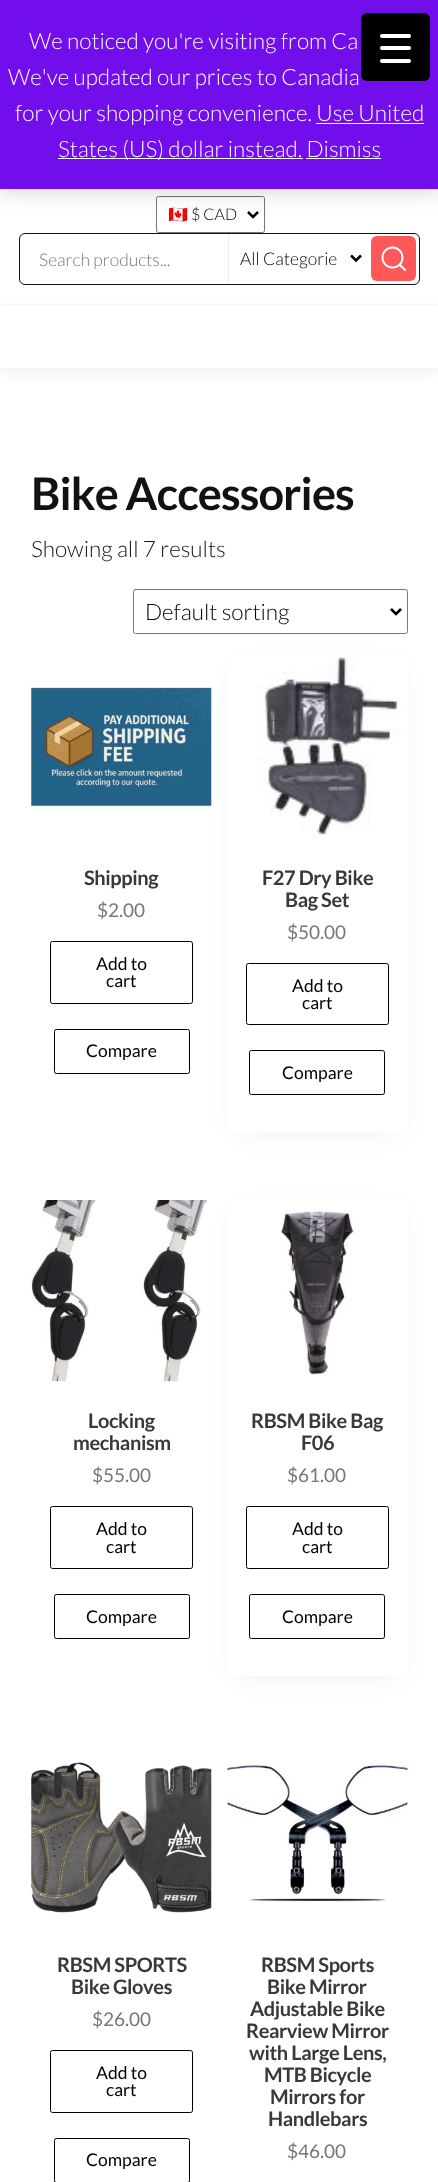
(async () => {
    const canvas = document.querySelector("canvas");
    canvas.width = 438;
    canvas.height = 2182;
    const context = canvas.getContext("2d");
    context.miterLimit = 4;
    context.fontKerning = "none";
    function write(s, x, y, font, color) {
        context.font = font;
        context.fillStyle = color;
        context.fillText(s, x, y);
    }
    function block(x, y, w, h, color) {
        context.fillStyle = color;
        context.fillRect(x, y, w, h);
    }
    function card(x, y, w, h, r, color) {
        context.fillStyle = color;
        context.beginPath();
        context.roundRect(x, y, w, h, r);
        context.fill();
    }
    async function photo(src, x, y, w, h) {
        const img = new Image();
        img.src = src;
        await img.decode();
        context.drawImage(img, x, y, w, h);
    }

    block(0, 0, 438, 2182, "rgb(255, 255, 255)");
    context.beginPath();
    context.roundRect(156.5, 196.5, 108, 36, 2);
    context.strokeStyle = "rgb(118, 118, 118)";
    context.stroke();
    context.beginPath();
    context.moveTo(248, 212);
    context.lineTo(253, 217);
    context.lineTo(258, 212);
    context.strokeStyle = "rgb(0, 0, 0)";
    context.lineWidth = 2.5;
    context.stroke();
    context.fillStyle = "rgba(0, 0, 0, 0.2)";
    context.filter = "blur(11px)";
    context.beginPath();
    context.rect(0, 1, 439, 189);
    context.fill();
    context.filter = "none";
    block(0, 0, 438, 189, "rgb(114, 14, 236)");
    write("We noticed you're visiting from Ca", 29, 49, "300 22.5px Lato", "rgb(252, 251, 254)");
    write("We've updated our prices to Canadia", 8, 85, "300 22.5px Lato", "rgb(252, 251, 254)");
    write("for your shopping convenience. Use United", 15, 121, "300 22.5px Lato", "rgb(252, 251, 254)");
    block(58, 158, 245, 1, "rgb(252, 251, 254)");
    write("States (US) dollar instead. Dismiss", 58, 157, "300 22.5px Lato", "rgb(252, 251, 254)");
    block(316, 123, 108, 1, "rgb(252, 251, 254)");
    block(306, 158, 75, 1, "rgb(252, 251, 254)");
    block(0, 304, 438, 1, "rgb(246, 246, 246)");
    context.save();
    context.beginPath();
    context.rect(169, 204, 69, 21);
    context.clip();
    write("🇨🇦", 168, 220, "16px Noto Color Emoji", "rgb(0, 0, 0)");
    context.restore();
    write("$ CAD", 191, 220, "300 16px Lato", "rgb(0, 0, 0)");
    context.beginPath();
    context.roundRect(19.5, 233.5, 400, 51, 5.5);
    context.strokeStyle = "rgb(18, 18, 18)";
    context.lineWidth = 1;
    context.stroke();
    write("Search products...", 39, 266, "300 17.5px Lato", "rgb(119, 119, 119)");
    block(228, 234, 1, 49, "rgb(236, 236, 236)");
    context.beginPath();
    context.moveTo(351, 255.5);
    context.lineTo(356, 260.5);
    context.lineTo(361, 255.5);
    context.strokeStyle = "rgb(0, 0, 0)";
    context.lineWidth = 2.5;
    context.stroke();
    write("All Categorie", 240, 265, "300 17.5px Lato", "rgb(0, 0, 0)");
    card(371, 236, 45, 45, 6, "rgb(255, 88, 88)");
    context.beginPath();
    context.arc(392.5, 257.5, 10, 0, Math.PI * 2);
    context.strokeStyle = "rgb(255, 255, 255)";
    context.lineWidth = 1.9;
    context.stroke();
    context.beginPath();
    context.moveTo(405, 270);
    context.lineTo(399.5, 264.5);
    context.lineCap = "round";
    context.lineJoin = "round";
    context.stroke();
    context.fillStyle = "rgba(25, 45, 110, 0.05)";
    context.filter = "blur(6px)";
    context.beginPath();
    context.rect(0, 311, 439, 64);
    context.fill();
    context.filter = "none";
    block(0, 307, 438, 61, "rgb(255, 255, 255)");
    block(0, 368, 438, 1, "rgb(246, 246, 246)");
    card(361, 13, 69, 68, 6, "rgb(0, 0, 0)");
    card(380, 46, 31, 4, 2, "rgb(255, 255, 255)");
    card(380, 34, 31, 4, 2, "rgb(255, 255, 255)");
    card(380, 59, 31, 4, 2, "rgb(255, 255, 255)");
    context.letterSpacing = "-0.9px";
    write("Bike Accessories", 31, 510, "bold 45px Lato", "rgb(18, 18, 18)");
    context.letterSpacing = "0px";
    write("Showing all 7 results", 31, 557, "300 22.5px Lato", "rgb(18, 18, 18)");
    context.beginPath();
    context.roundRect(133.5, 589.5, 274, 44, 2);
    context.strokeStyle = "rgb(118, 118, 118)";
    context.lineWidth = 1;
    context.lineJoin = "miter";
    context.stroke();
    context.beginPath();
    context.moveTo(391, 609);
    context.lineTo(396, 614);
    context.lineTo(401, 609);
    context.strokeStyle = "rgb(0, 0, 0)";
    context.lineWidth = 2.5;
    context.lineCap = "butt";
    context.stroke();
    write("Default sorting", 145, 620, "300 22.5px Lato", "rgb(0, 0, 0)");
    await photo("media/1.png", 31, 687, 181, 122);
    context.letterSpacing = "-0.4px";
    write("Shipping", 84, 885, "bold 20px Lato", "rgb(57, 57, 58)");
    context.letterSpacing = "0px";
    write("$2.00", 97, 917, "19px Lato", "rgb(119, 119, 119)");
    context.beginPath();
    context.roundRect(50.5, 941.5, 142, 62, 2);
    context.lineWidth = 1;
    context.stroke();
    write("Add to", 96, 970, "17.5px Lato", "rgb(0, 0, 0)");
    write("cart", 106, 987, "17.5px Lato", "rgb(0, 0, 0)");
    context.beginPath();
    context.roundRect(54.5, 1029.5, 135, 44, 2);
    context.stroke();
    write("Compare", 86, 1057, "17.5px Lato", "rgb(0, 0, 0)");
    context.fillStyle = "rgba(0, 0, 0, 0.1)";
    context.filter = "blur(15.5px)";
    context.beginPath();
    context.rect(240, 675, 155, 451);
    context.fill();
    context.filter = "none";
    card(228, 656, 180, 477, 6, "rgb(255, 255, 255)");
    await photo("media/2.png", 257, 656, 144, 182);
    context.letterSpacing = "-0.4px";
    write("F27 Dry Bike", 262, 885, "bold 20px Lato", "rgb(57, 57, 58)");
    write("Bag Set", 285, 907, "bold 20px Lato", "rgb(57, 57, 58)");
    context.letterSpacing = "0px";
    write("$50.00", 287, 939, "19px Lato", "rgb(119, 119, 119)");
    context.beginPath();
    context.roundRect(246.5, 963.5, 142, 61, 2);
    context.stroke();
    write("Add to", 292, 992, "17.5px Lato", "rgb(0, 0, 0)");
    write("cart", 302, 1009, "17.5px Lato", "rgb(0, 0, 0)");
    context.beginPath();
    context.roundRect(249.5, 1050.5, 135, 44, 2);
    context.stroke();
    write("Compare", 282, 1079, "17.5px Lato", "rgb(0, 0, 0)");
    await photo("media/3.png", 31, 1200, 177, 182);
    context.letterSpacing = "-0.4px";
    write("Locking", 88, 1428, "bold 20px Lato", "rgb(57, 57, 58)");
    write("mechanism", 73, 1450, "bold 20px Lato", "rgb(57, 57, 58)");
    context.letterSpacing = "0px";
    write("$55.00", 92, 1482, "19px Lato", "rgb(119, 119, 119)");
    context.beginPath();
    context.roundRect(50.5, 1506.5, 142, 62, 2);
    context.stroke();
    write("Add to", 96, 1535, "17.5px Lato", "rgb(0, 0, 0)");
    write("cart", 106, 1553, "17.5px Lato", "rgb(0, 0, 0)");
    context.beginPath();
    context.roundRect(54.5, 1594.5, 135, 44, 2);
    context.stroke();
    write("Compare", 86, 1623, "17.5px Lato", "rgb(0, 0, 0)");
    context.fillStyle = "rgba(0, 0, 0, 0.1)";
    context.filter = "blur(15.5px)";
    context.beginPath();
    context.rect(240, 1219, 155, 451);
    context.fill();
    context.filter = "none";
    card(228, 1200, 180, 476, 6, "rgb(255, 255, 255)");
    await photo("media/4.png", 280, 1210, 76, 165);
    context.letterSpacing = "-0.4px";
    write("RBSM Bike Bag", 251, 1428, "bold 20px Lato", "rgb(57, 57, 58)");
    write("F06", 301, 1450, "bold 20px Lato", "rgb(57, 57, 58)");
    context.letterSpacing = "0px";
    write("$61.00", 287, 1482, "19px Lato", "rgb(119, 119, 119)");
    context.beginPath();
    context.roundRect(246.5, 1506.5, 142, 62, 2);
    context.stroke();
    write("Add to", 292, 1535, "17.5px Lato", "rgb(0, 0, 0)");
    write("cart", 302, 1553, "17.5px Lato", "rgb(0, 0, 0)");
    context.beginPath();
    context.roundRect(249.5, 1594.5, 135, 44, 2);
    context.stroke();
    write("Compare", 282, 1623, "17.5px Lato", "rgb(0, 0, 0)");
    await photo("media/5.png", 31, 1762, 181, 151);
    context.letterSpacing = "-0.4px";
    write("RBSM SPORTS", 57, 1972, "bold 20px Lato", "rgb(57, 57, 58)");
    write("Bike Gloves", 71, 1994, "bold 20px Lato", "rgb(57, 57, 58)");
    context.letterSpacing = "0px";
    write("$26.00", 92, 2026, "19px Lato", "rgb(119, 119, 119)");
    context.beginPath();
    context.roundRect(50.5, 2050.5, 142, 62, 2);
    context.stroke();
    write("Add to", 96, 2079, "17.5px Lato", "rgb(0, 0, 0)");
    write("cart", 106, 2096, "17.5px Lato", "rgb(0, 0, 0)");
    context.beginPath();
    context.roundRect(54.5, 2138.5, 135, 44, 2);
    context.stroke();
    write("Compare", 86, 2166, "17.5px Lato", "rgb(0, 0, 0)");
    await photo("media/6.png", 227, 1763, 181, 139);
    context.letterSpacing = "-0.4px";
    write("RBSM Sports", 261, 1972, "bold 20px Lato", "rgb(57, 57, 58)");
    write("Bike Mirror", 267, 1994, "bold 20px Lato", "rgb(57, 57, 58)");
    write("Adjustable Bike", 250, 2016, "bold 20px Lato", "rgb(57, 57, 58)");
    write("Rearview Mirror", 246, 2038, "bold 20px Lato", "rgb(57, 57, 58)");
    write("with Large Lens,", 249, 2060, "bold 20px Lato", "rgb(57, 57, 58)");
    write("MTB Bicycle", 264, 2082, "bold 20px Lato", "rgb(57, 57, 58)");
    write("Mirrors for", 270, 2104, "bold 20px Lato", "rgb(57, 57, 58)");
    write("Handlebars", 268, 2126, "bold 20px Lato", "rgb(57, 57, 58)");
    context.letterSpacing = "0px";
    write("$46.00", 287, 2158, "19px Lato", "rgb(119, 119, 119)");
})();
